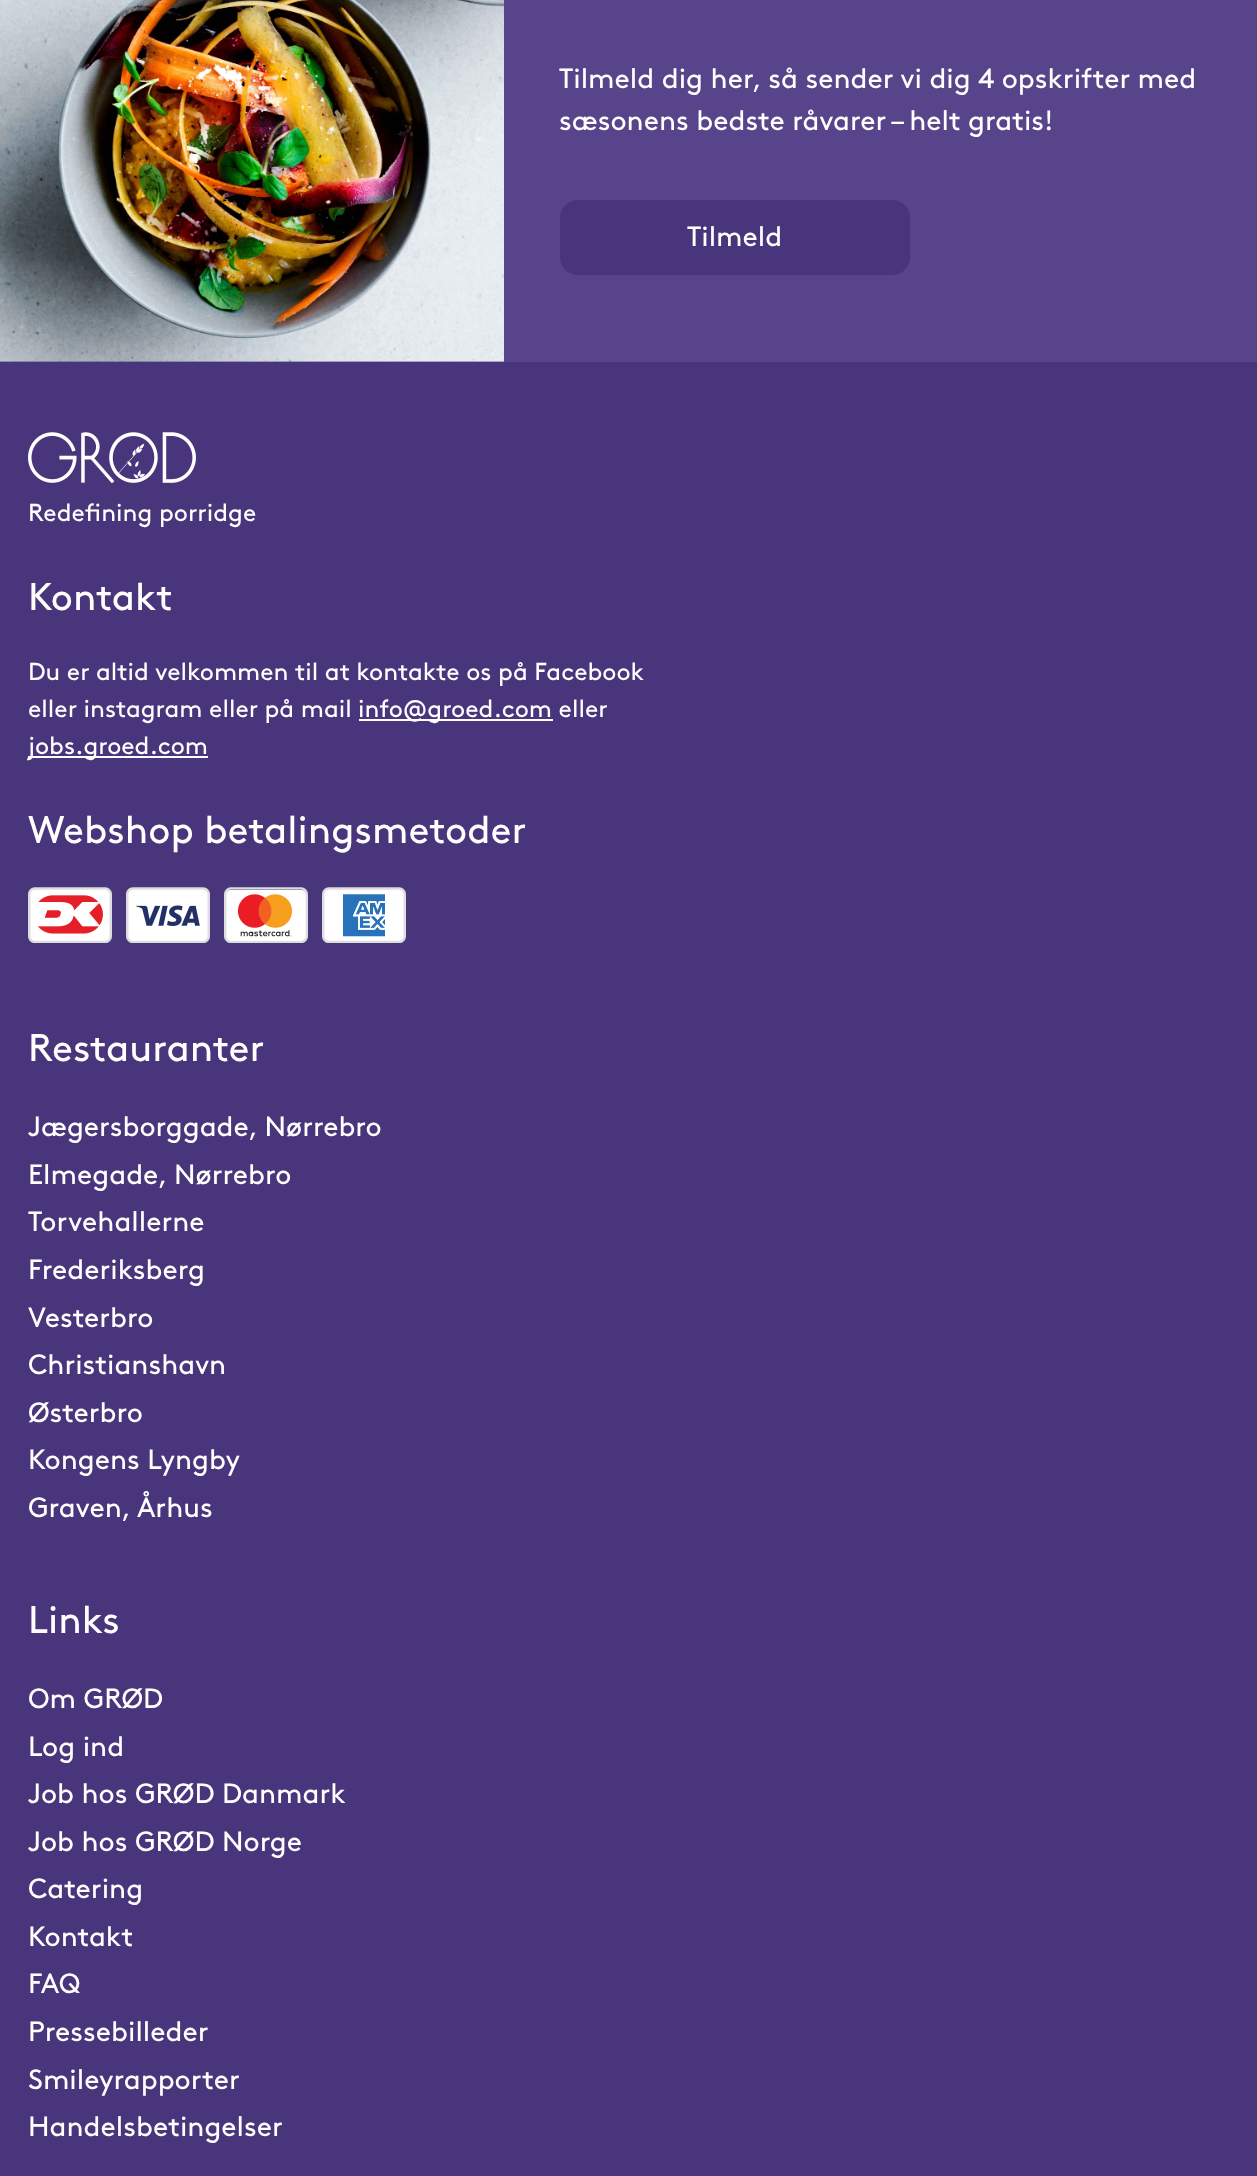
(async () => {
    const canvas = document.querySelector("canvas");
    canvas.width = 1257;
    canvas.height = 2176;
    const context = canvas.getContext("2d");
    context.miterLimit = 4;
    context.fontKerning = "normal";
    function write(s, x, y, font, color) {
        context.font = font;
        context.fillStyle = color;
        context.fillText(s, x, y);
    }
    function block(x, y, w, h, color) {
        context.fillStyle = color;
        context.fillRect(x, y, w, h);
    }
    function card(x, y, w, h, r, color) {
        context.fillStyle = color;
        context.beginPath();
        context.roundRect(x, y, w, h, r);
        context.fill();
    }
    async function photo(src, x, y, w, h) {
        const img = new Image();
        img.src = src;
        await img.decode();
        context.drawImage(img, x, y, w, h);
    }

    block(0, 0, 1257, 2176, "rgb(72, 53, 123)");
    block(0, 0, 1257, 362, "rgb(87, 68, 138)");
    await photo("media/1.png", 0, 0, 504, 362);
    write("Tilmeld dig her, så sender vi dig 4 opskrifter med", 559, 88, "28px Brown", "rgb(255, 255, 255)");
    write("sæsonens bedste råvarer – helt gratis!", 559, 130, "28px Brown", "rgb(255, 255, 255)");
    card(560, 200, 350, 75, 18, "rgb(72, 53, 123)");
    write("Tilmeld", 687, 246, "28px Brown", "rgb(255, 255, 255)");
    await photo("media/2.png", 28, 432, 168, 51);
    write("Redefining porridge", 28, 521, "24.5px Brown", "rgb(255, 255, 255)");
    write("Kontakt", 28, 610, "38.5px Brown", "rgb(255, 255, 255)");
    write("Du er altid velkommen til at kontakte os på Facebook", 28, 680, "24.5px Brown", "rgb(255, 255, 255)");
    write("eller instagram eller på mail", 28, 717, "24.5px Brown", "rgb(255, 255, 255)");
    block(359, 719, 194, 2, "rgb(255, 255, 255)");
    write("info@groed.com eller", 358, 717, "24.5px Brown", "rgb(255, 255, 255)");
    block(28, 756, 180, 2, "rgb(255, 255, 255)");
    write("jobs.groed.com", 28, 754, "24.5px Brown", "rgb(255, 255, 255)");
    write("Webshop betalingsmetoder", 28, 843, "38.5px Brown", "rgb(255, 255, 255)");
    await photo("media/3.png", 28, 887, 84, 56);
    await photo("media/4.png", 126, 887, 84, 56);
    await photo("media/5.png", 224, 887, 84, 56);
    await photo("media/6.png", 322, 887, 84, 56);
    write("Restauranter", 28, 1061, "38.5px Brown", "rgb(255, 255, 255)");
    write("Jægersborggade, Nørrebro", 28, 1136, "28px Brown", "rgb(255, 255, 255)");
    write("Elmegade, Nørrebro", 28, 1184, "28px Brown", "rgb(255, 255, 255)");
    write("Torvehallerne", 28, 1231, "28px Brown", "rgb(255, 255, 255)");
    write("Frederiksberg", 28, 1279, "28px Brown", "rgb(255, 255, 255)");
    write("Vesterbro", 28, 1327, "28px Brown", "rgb(255, 255, 255)");
    write("Christianshavn", 28, 1374, "28px Brown", "rgb(255, 255, 255)");
    write("Østerbro", 28, 1422, "28px Brown", "rgb(255, 255, 255)");
    write("Kongens Lyngby", 28, 1469, "28px Brown", "rgb(255, 255, 255)");
    write("Graven, Århus", 28, 1517, "28px Brown", "rgb(255, 255, 255)");
    write("Links", 28, 1633, "38.5px Brown", "rgb(255, 255, 255)");
    write("Om GRØD", 28, 1708, "28px Brown", "rgb(255, 255, 255)");
    write("Log ind", 28, 1756, "28px Brown", "rgb(255, 255, 255)");
    write("Job hos GRØD Danmark", 28, 1803, "28px Brown", "rgb(255, 255, 255)");
    write("Job hos GRØD Norge", 28, 1851, "28px Brown", "rgb(255, 255, 255)");
    write("Catering", 28, 1898, "28px Brown", "rgb(255, 255, 255)");
    write("Kontakt", 28, 1946, "28px Brown", "rgb(255, 255, 255)");
    write("FAQ", 28, 1993, "28px Brown", "rgb(255, 255, 255)");
    write("Pressebilleder", 28, 2041, "28px Brown", "rgb(255, 255, 255)");
    write("Smileyrapporter", 28, 2089, "28px Brown", "rgb(255, 255, 255)");
    write("Handelsbetingelser", 28, 2136, "28px Brown", "rgb(255, 255, 255)");
})();
